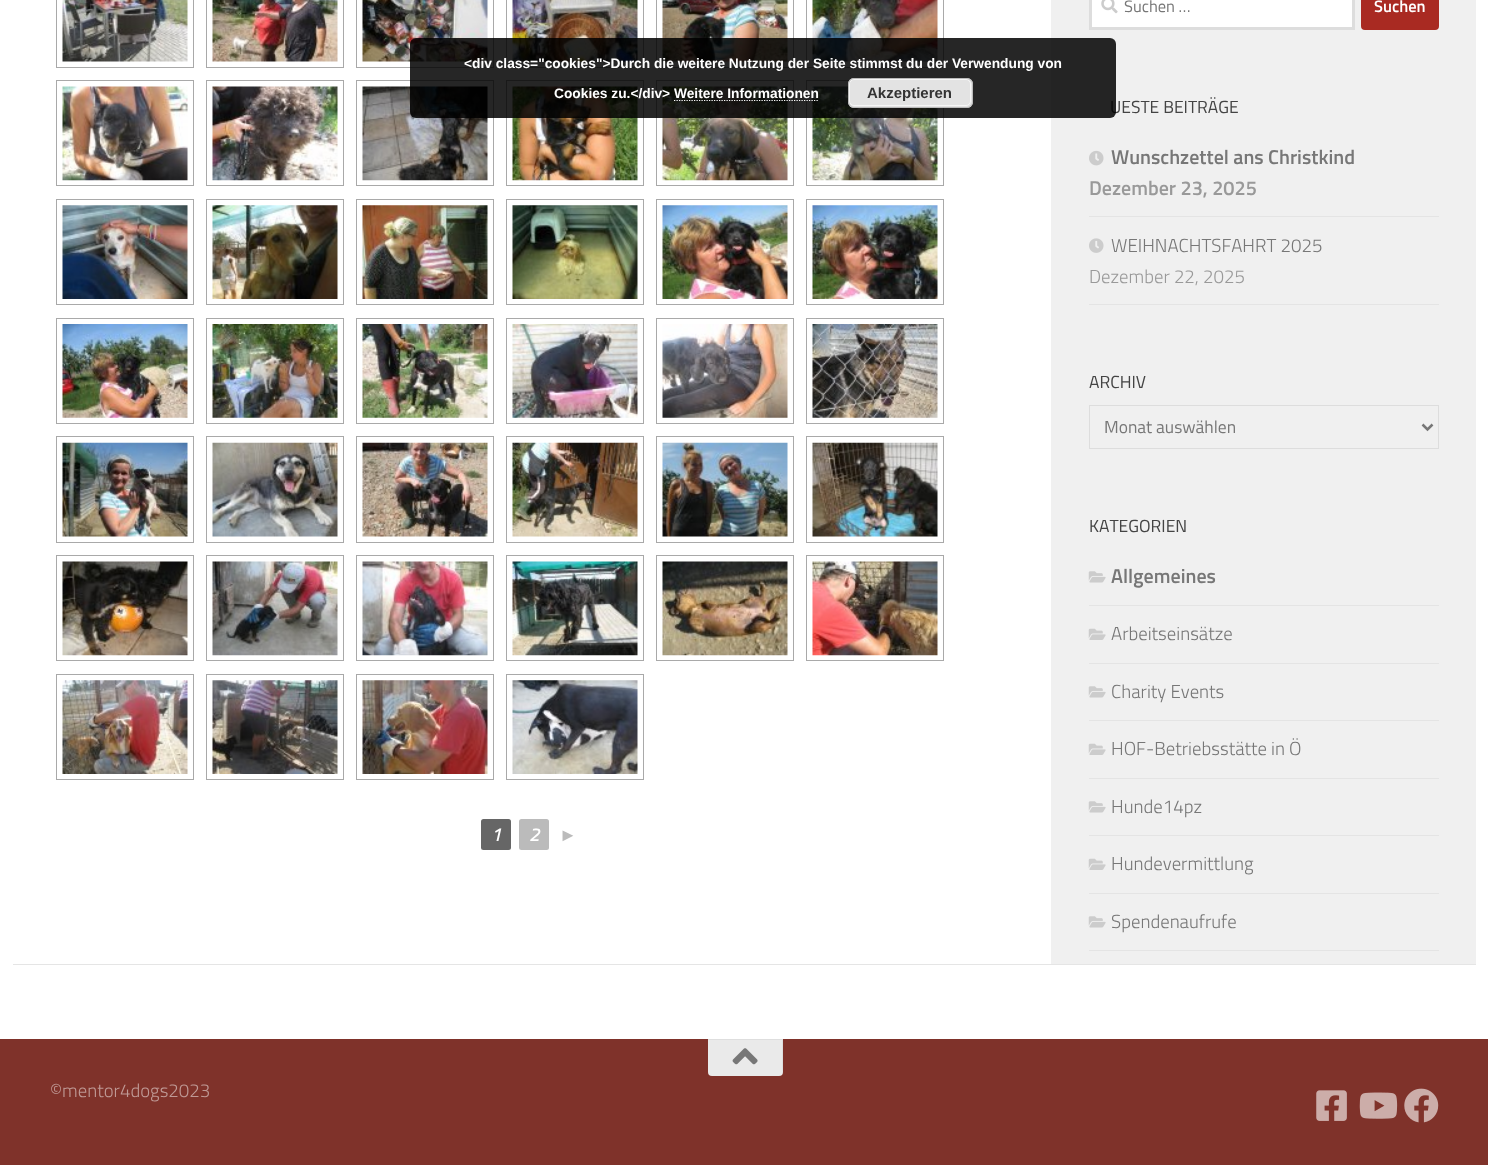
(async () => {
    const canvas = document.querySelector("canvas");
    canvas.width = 1488;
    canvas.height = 1165;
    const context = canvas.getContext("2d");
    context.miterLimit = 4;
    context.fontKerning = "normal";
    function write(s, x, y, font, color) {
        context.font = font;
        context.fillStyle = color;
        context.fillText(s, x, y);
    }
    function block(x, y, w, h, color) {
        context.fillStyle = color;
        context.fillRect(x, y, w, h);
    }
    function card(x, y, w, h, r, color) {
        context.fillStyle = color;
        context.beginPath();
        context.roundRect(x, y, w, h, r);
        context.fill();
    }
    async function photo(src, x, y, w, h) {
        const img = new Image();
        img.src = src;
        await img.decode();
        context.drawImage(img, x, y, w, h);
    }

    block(0, 0, 1488, 1165, "rgb(255, 255, 255)");
    context.fillStyle = "rgba(0, 0, 0, 0.1)";
    context.filter = "blur(0.5px)";
    context.beginPath();
    context.rect(13, -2, 1463, 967);
    context.fill();
    context.filter = "none";
    block(13, 0, 1038, 964, "rgb(255, 255, 255)");
    context.strokeStyle = "rgb(169, 169, 169)";
    context.strokeRect(56.5, -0.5, 137, 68);
    await photo("media/1.png", 62, 0, 126, 62);
    context.strokeRect(206.5, -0.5, 137, 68);
    await photo("media/2.png", 212, 0, 126, 62);
    context.strokeRect(356.5, -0.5, 137, 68);
    await photo("media/3.png", 362, 0, 126, 62);
    context.strokeRect(506.5, -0.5, 137, 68);
    await photo("media/4.png", 512, 0, 126, 62);
    context.strokeRect(656.5, -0.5, 137, 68);
    await photo("media/5.png", 662, 0, 126, 62);
    context.strokeRect(806.5, -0.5, 137, 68);
    await photo("media/6.png", 812, 0, 126, 62);
    context.strokeRect(56.5, 80.5, 137, 105);
    await photo("media/7.png", 62, 86, 126, 95);
    context.strokeRect(206.5, 80.5, 137, 105);
    await photo("media/8.png", 212, 86, 126, 95);
    context.strokeRect(356.5, 80.5, 137, 105);
    await photo("media/9.png", 362, 86, 126, 95);
    context.strokeRect(506.5, 80.5, 137, 105);
    await photo("media/10.png", 512, 86, 126, 95);
    context.strokeRect(656.5, 80.5, 137, 105);
    await photo("media/11.png", 662, 86, 126, 95);
    context.strokeRect(806.5, 80.5, 137, 105);
    await photo("media/12.png", 812, 86, 126, 95);
    context.strokeRect(56.5, 199.5, 137, 105);
    await photo("media/13.png", 62, 205, 126, 94);
    context.strokeRect(206.5, 199.5, 137, 105);
    await photo("media/14.png", 212, 205, 126, 94);
    context.strokeRect(356.5, 199.5, 137, 105);
    await photo("media/15.png", 362, 205, 126, 94);
    context.strokeRect(506.5, 199.5, 137, 105);
    await photo("media/16.png", 512, 205, 126, 94);
    context.strokeRect(656.5, 199.5, 137, 105);
    await photo("media/17.png", 662, 205, 126, 94);
    context.strokeRect(806.5, 199.5, 137, 105);
    await photo("media/18.png", 812, 205, 126, 94);
    context.strokeRect(56.5, 318.5, 137, 105);
    await photo("media/19.png", 62, 324, 126, 94);
    context.strokeRect(206.5, 318.5, 137, 105);
    await photo("media/20.png", 212, 324, 126, 94);
    context.strokeRect(356.5, 318.5, 137, 105);
    await photo("media/21.png", 362, 324, 126, 94);
    context.strokeRect(506.5, 318.5, 137, 105);
    await photo("media/22.png", 512, 324, 126, 94);
    context.strokeRect(656.5, 318.5, 137, 105);
    await photo("media/23.png", 662, 324, 126, 94);
    context.strokeRect(806.5, 318.5, 137, 105);
    await photo("media/24.png", 812, 324, 126, 94);
    context.strokeRect(56.5, 436.5, 137, 106);
    await photo("media/25.png", 62, 442, 126, 95);
    context.strokeRect(206.5, 436.5, 137, 106);
    await photo("media/26.png", 212, 442, 126, 95);
    context.strokeRect(356.5, 436.5, 137, 106);
    await photo("media/27.png", 362, 442, 126, 95);
    context.strokeRect(506.5, 436.5, 137, 106);
    await photo("media/28.png", 512, 442, 126, 95);
    context.strokeRect(656.5, 436.5, 137, 106);
    await photo("media/29.png", 662, 442, 126, 95);
    context.strokeRect(806.5, 436.5, 137, 106);
    await photo("media/30.png", 812, 442, 126, 95);
    context.strokeRect(56.5, 555.5, 137, 105);
    await photo("media/31.png", 62, 561, 126, 95);
    context.strokeRect(206.5, 555.5, 137, 105);
    await photo("media/32.png", 212, 561, 126, 95);
    context.strokeRect(356.5, 555.5, 137, 105);
    await photo("media/33.png", 362, 561, 126, 95);
    context.strokeRect(506.5, 555.5, 137, 105);
    await photo("media/34.png", 512, 561, 126, 95);
    context.strokeRect(656.5, 555.5, 137, 105);
    await photo("media/35.png", 662, 561, 126, 95);
    context.strokeRect(806.5, 555.5, 137, 105);
    await photo("media/36.png", 812, 561, 126, 95);
    context.strokeRect(56.5, 674.5, 137, 105);
    await photo("media/37.png", 62, 680, 126, 94);
    context.strokeRect(206.5, 674.5, 137, 105);
    await photo("media/38.png", 212, 680, 126, 94);
    context.strokeRect(356.5, 674.5, 137, 105);
    await photo("media/39.png", 362, 680, 126, 94);
    context.strokeRect(506.5, 674.5, 137, 105);
    await photo("media/40.png", 512, 680, 126, 94);
    card(481, 819, 30, 31, 2.5, "rgb(102, 102, 102)");
    write("1", 491, 841, "italic bold 18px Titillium", "rgb(255, 255, 255)");
    card(519, 819, 30, 31, 2.5, "rgb(187, 187, 187)");
    write("2", 529, 841, "italic bold 18px Titillium", "rgb(255, 255, 255)");
    write("►", 559, 841, "italic bold 18px Liberation Sans", "rgb(187, 187, 187)");
    block(1051, 0, 425, 964, "rgb(240, 240, 240)");
    context.fillStyle = "rgb(255, 255, 255)";
    context.beginPath();
    context.rect(1090.5, -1.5, 263, 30);
    context.fill();
    context.strokeStyle = "rgb(221, 221, 221)";
    context.lineWidth = 3;
    context.stroke();
    await photo("media/41.png", 1101, 0, 17, 14);
    write("Suchen …", 1124, 12, "16.5px Titillium", "rgb(119, 119, 119)");
    card(1361, -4, 78, 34, 4, "rgb(169, 42, 34)");
    write("Suchen", 1374, 12, "600 16.5px Titillium", "rgb(255, 255, 255)");
    write("UESTE BEITRÄGE", 1110, 113, "17.5px Titillium", "rgb(68, 68, 68)");
    block(1089, 216, 350, 1, "rgb(228, 228, 228)");
    await photo("media/42.png", 1089, 150, 15, 16);
    write("Wunschzettel ans Christkind", 1111, 164, "600 20px Titillium", "rgb(119, 119, 119)");
    write("Dezember 23, 2025", 1089, 195, "600 20px Titillium", "rgb(153, 153, 153)");
    block(1089, 304, 350, 1, "rgb(228, 228, 228)");
    await photo("media/43.png", 1089, 238, 15, 15);
    write("WEIHNACHTSFAHRT 2025", 1111, 252, "300 18.75px Titillium", "rgb(119, 119, 119)");
    write("Dezember 22, 2025", 1089, 283, "300 18.75px Titillium", "rgb(153, 153, 153)");
    write("ARCHIV", 1089, 388, "17.5px Titillium", "rgb(68, 68, 68)");
    context.lineWidth = 1;
    context.strokeRect(1089.5, 405.5, 349, 43);
    context.beginPath();
    context.moveTo(1422.5, 424.5);
    context.lineTo(1427.5, 429.5);
    context.lineTo(1432.5, 424.5);
    context.strokeStyle = "rgb(119, 119, 119)";
    context.lineWidth = 2.5;
    context.stroke();
    write("Monat auswählen", 1104, 433, "17.5px Titillium", "rgb(119, 119, 119)");
    write("KATEGORIEN", 1089, 532, "17.5px Titillium", "rgb(68, 68, 68)");
    block(1089, 605, 350, 1, "rgb(228, 228, 228)");
    await photo("media/44.png", 1088, 571, 18, 12);
    write("Allgemeines", 1111, 583, "600 20px Titillium", "rgb(119, 119, 119)");
    block(1089, 663, 350, 1, "rgb(228, 228, 228)");
    await photo("media/45.png", 1088, 628, 18, 12);
    write("Arbeitseinsätze", 1111, 640, "300 18.75px Titillium", "rgb(119, 119, 119)");
    block(1089, 720, 350, 1, "rgb(228, 228, 228)");
    await photo("media/44.png", 1088, 686, 18, 12);
    write("Charity Events", 1111, 698, "300 18.75px Titillium", "rgb(119, 119, 119)");
    block(1089, 778, 350, 1, "rgb(228, 228, 228)");
    await photo("media/45.png", 1088, 743, 18, 12);
    write("HOF-Betriebsstätte in Ö", 1111, 755, "300 18.75px Titillium", "rgb(119, 119, 119)");
    block(1089, 835, 350, 1, "rgb(228, 228, 228)");
    await photo("media/44.png", 1088, 801, 18, 12);
    write("Hunde14pz", 1111, 813, "300 18.75px Titillium", "rgb(119, 119, 119)");
    block(1089, 893, 350, 1, "rgb(228, 228, 228)");
    await photo("media/45.png", 1088, 858, 18, 12);
    write("Hundevermittlung", 1111, 870, "300 18.75px Titillium", "rgb(119, 119, 119)");
    block(1089, 950, 350, 1, "rgb(228, 228, 228)");
    await photo("media/44.png", 1088, 916, 18, 12);
    write("Spendenaufrufe", 1111, 928, "300 18.75px Titillium", "rgb(119, 119, 119)");
    block(0, 1039, 1488, 126, "rgb(127, 50, 42)");
    context.fillStyle = "rgb(234, 234, 234)";
    context.beginPath();
    context.roundRect(708, 1039, 75, 37, [0, 0, 4, 4]);
    context.fill();
    context.fillStyle = "rgba(0, 0, 0, 0.05)";
    context.beginPath();
    context.moveTo(708, 1040);
    context.lineTo(782, 1040);
    context.lineTo(782, 1075);
    context.bezierCurveTo(784, 1072, 783, 1044, 783, 1039);
    context.lineTo(708, 1039);
    context.closePath();
    context.fill();
    await photo("media/46.png", 732, 1048, 26, 17);
    write("©mentor4dogs2023", 50, 1097, "300 18.75px Titillium", "rgb(191, 153, 149)");
    await photo("media/47.png", 1316, 1090, 31, 31);
    await photo("media/48.png", 1359, 1092, 39, 27);
    await photo("media/49.png", 1404, 1088, 35, 35);
    card(410, 38, 706, 80, 6, "rgba(0, 0, 0, 0.85)");
    write("<div class=\"cookies\">Durch die weitere Nutzung der Seite stimmst du der Verwendung von", 464, 68, "bold 13.75px Liberation Sans", "rgb(255, 255, 255)");
    write("Cookies zu.<\/div> Weitere Informationen", 554, 98, "bold 13.75px Liberation Sans", "rgb(255, 255, 255)");
    card(848, 78, 125, 30, 6, "rgb(227, 227, 227)");
    context.beginPath();
    context.roundRect(849.5, 79.5, 121, 26, 4.5);
    context.strokeStyle = "rgb(246, 246, 246)";
    context.lineWidth = 1;
    context.stroke();
    context.beginPath();
    context.roundRect(848.5, 78.5, 124, 29, 5.5);
    context.strokeStyle = "rgb(187, 187, 187)";
    context.stroke();
    write("Akzeptieren", 867, 98, "bold 15px Liberation Sans", "rgb(51, 51, 51)");
    context.beginPath();
    context.moveTo(674, 100.5);
    context.lineTo(819, 100.5);
    context.strokeStyle = "rgb(255, 255, 255)";
    context.lineWidth = 1.2;
    context.setLineDash([1.25, 1.25]);
    context.stroke();
})();
